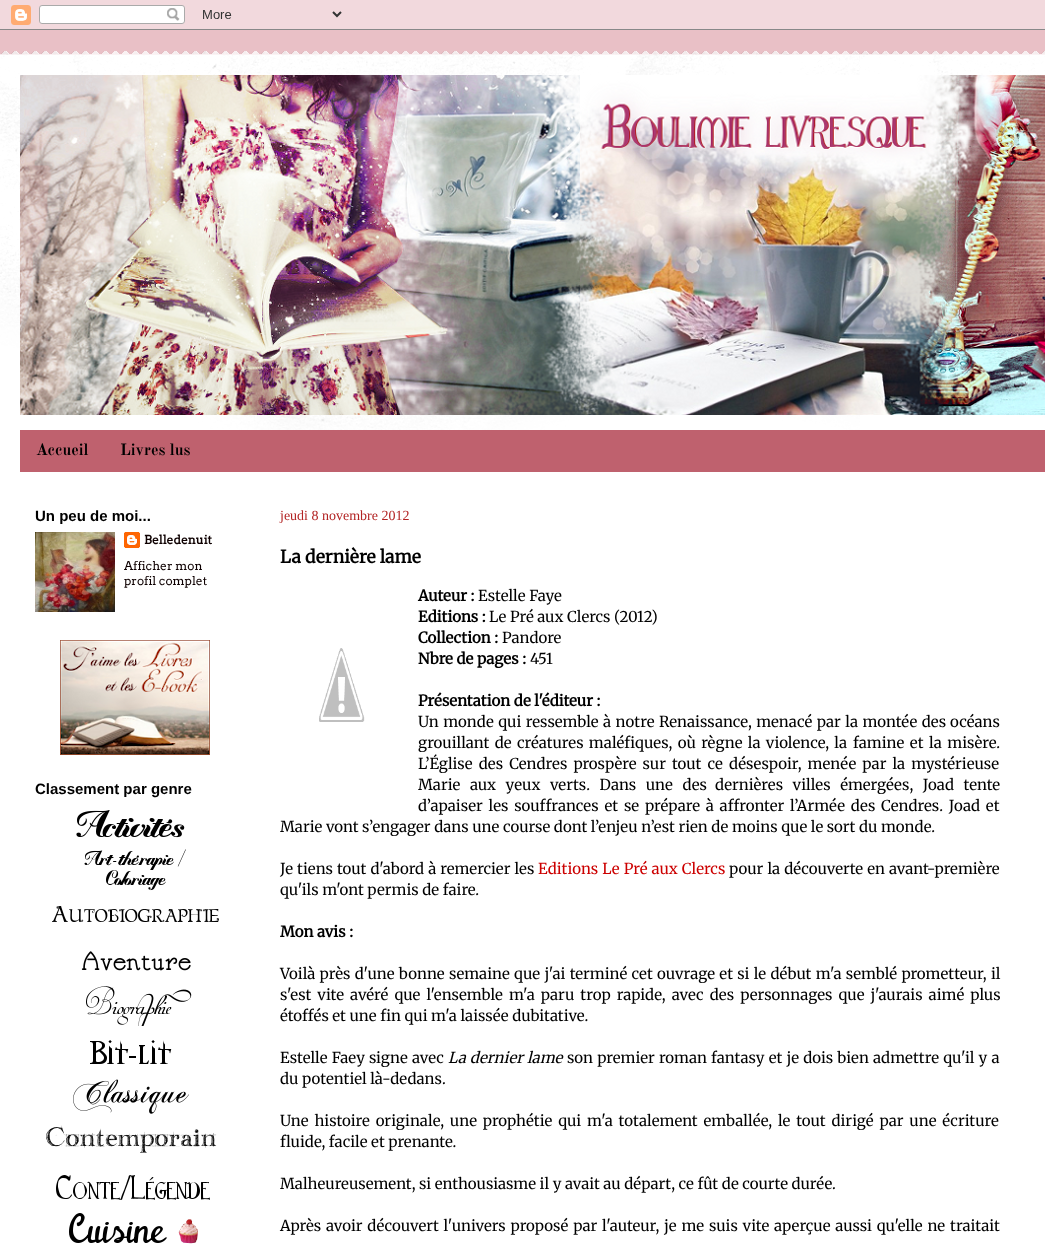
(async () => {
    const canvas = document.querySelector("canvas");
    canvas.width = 1045;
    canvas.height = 1248;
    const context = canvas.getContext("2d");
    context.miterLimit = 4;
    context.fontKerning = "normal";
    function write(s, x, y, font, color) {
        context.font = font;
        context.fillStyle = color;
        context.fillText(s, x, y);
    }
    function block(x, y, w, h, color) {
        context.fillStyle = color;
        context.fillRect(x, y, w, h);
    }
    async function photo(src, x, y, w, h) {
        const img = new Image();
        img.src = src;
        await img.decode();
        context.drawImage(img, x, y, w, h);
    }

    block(0, 0, 1045, 1248, "rgb(233, 192, 198)");
    await photo("media/1.png", 0, 0, 1045, 30);
    await photo("media/2.png", 0, 51, 1045, 4);
    block(0, 55, 1045, 1193, "rgb(255, 255, 255)");
    await photo("media/3.png", 0, 55, 1045, 375);
    await photo("media/4.png", 20, 75, 1025, 340);
    block(20, 430, 1025, 42, "rgb(191, 97, 110)");
    write("Accueil", 36, 455, "bold 16px Old Standard TT", "rgb(0, 0, 0)");
    write("Livres lus", 120, 455, "bold 16px Old Standard TT", "rgb(0, 0, 0)");
    write("Un peu de moi...", 35, 521, "bold 15px Liberation Sans", "rgb(0, 0, 0)");
    await photo("media/5.png", 35, 532, 80, 80);
    await photo("media/6.png", 124, 532, 16, 16);
    write("Belledenuit", 144, 544, "bold 12px Arvo", "rgb(14, 0, 1)");
    write("Afficher mon", 124, 570, "12px Arvo", "rgb(14, 0, 1)");
    write("profil complet", 124, 585, "12px Arvo", "rgb(14, 0, 1)");
    await photo("media/7.png", 60, 640, 150, 115);
    write("Classement par genre", 35, 794, "bold 15px Liberation Sans", "rgb(0, 0, 0)");
    await photo("media/8.png", 76, 810, 109, 28);
    await photo("media/9.png", 84, 849, 102, 42);
    await photo("media/10.png", 52, 906, 167, 16);
    await photo("media/11.png", 81, 951, 110, 20);
    await photo("media/12.png", 86, 986, 106, 40);
    await photo("media/13.png", 90, 1040, 82, 24);
    await photo("media/14.png", 73, 1079, 116, 35);
    await photo("media/15.png", 46, 1125, 171, 28);
    await photo("media/16.png", 56, 1175, 154, 25);
    await photo("media/17.png", 69, 1213, 129, 31);
    write("jeudi 8 novembre 2012", 280, 520, "14px Liberation Serif", "rgb(178, 34, 34)");
    write("La dernière lame", 280, 563, "bold 17.5px Merriweather", "rgb(0, 0, 0)");
    write("Auteur :", 418, 601, "bold 15px Merriweather", "rgb(0, 0, 0)");
    write("Estelle Faye", 478, 601, "300 15px Merriweather", "rgb(0, 0, 0)");
    write("Editions :", 418, 622, "bold 15px Merriweather", "rgb(0, 0, 0)");
    write("Le Pré aux Clercs (2012)", 489, 622, "300 15px Merriweather", "rgb(0, 0, 0)");
    write("Collection :", 418, 643, "bold 15px Merriweather", "rgb(0, 0, 0)");
    write("Pandore", 502, 643, "300 15px Merriweather", "rgb(0, 0, 0)");
    await photo("media/18.png", 319, 648, 46, 74);
    write("Nbre de pages :", 418, 664, "bold 15px Merriweather", "rgb(0, 0, 0)");
    write("451", 530, 664, "300 15px Merriweather", "rgb(0, 0, 0)");
    write("Présentation de l'éditeur :", 418, 706, "bold 15px Merriweather", "rgb(0, 0, 0)");
    context.wordSpacing = "0.9px";
    write("Un monde qui ressemble à notre Renaissance, menacé par la montée des", 418, 727, "300 15px Merriweather", "rgb(0, 0, 0)");
    context.wordSpacing = "0px";
    write("océans", 950, 727, "300 15px Merriweather", "rgb(0, 0, 0)");
    context.wordSpacing = "1.75px";
    write("grouillant de créatures maléfiques, où règne la violence, la", 418, 748, "300 15px Merriweather", "rgb(0, 0, 0)");
    context.wordSpacing = "2px";
    write("famine et la misère.", 853, 748, "300 15px Merriweather", "rgb(0, 0, 0)");
    context.wordSpacing = "2.5px";
    write("L’Église des Cendres prospère sur tout ce", 418, 769, "300 15px Merriweather", "rgb(0, 0, 0)");
    write("désespoir, menée par la mystérieuse", 729, 769, "300 15px Merriweather", "rgb(0, 0, 0)");
    context.wordSpacing = "6px";
    write("Marie aux yeux verts. Dans une des", 418, 790, "300 15px Merriweather", "rgb(0, 0, 0)");
    write("dernières villes émergées, Joad tente", 715, 790, "300 15px Merriweather", "rgb(0, 0, 0)");
    context.wordSpacing = "2.25px";
    write("d’apaiser les souffrances et se", 418, 811, "300 15px Merriweather", "rgb(0, 0, 0)");
    write("prépare à affronter l’Armée des Cendres. Joad et", 645, 811, "300 15px Merriweather", "rgb(0, 0, 0)");
    context.wordSpacing = "0px";
    write("Marie vont s’engager dans une course dont l’enjeu n’est rien de moins que le sort du monde.", 280, 832, "300 15px Merriweather", "rgb(0, 0, 0)");
    context.wordSpacing = "0.5px";
    write("Je tiens tout d'abord à remercier les", 280, 874, "300 15px Merriweather", "rgb(0, 0, 0)");
    write("Editions Le Pré aux Clercs", 538, 874, "300 15px Merriweather", "rgb(204, 0, 0)");
    write("pour la découverte en avant-première", 729, 874, "300 15px Merriweather", "rgb(0, 0, 0)");
    context.wordSpacing = "0px";
    write("qu'ils m'ont permis de faire.", 280, 895, "300 15px Merriweather", "rgb(0, 0, 0)");
    write("Mon avis :", 280, 937, "bold 15px Merriweather", "rgb(0, 0, 0)");
    context.wordSpacing = "0.75px";
    write("Voilà près d'une bonne semaine que j'ai terminé cet ouvrage et si le début m'a semblé prometteur, il", 280, 979, "300 15px Merriweather", "rgb(0, 0, 0)");
    context.wordSpacing = "2.5px";
    write("s'est vite avéré que l'ensemble m'a paru trop rapide, avec des personnages que j'aurais aimé plus", 280, 1000, "300 15px Merriweather", "rgb(0, 0, 0)");
    context.wordSpacing = "0px";
    write("étoffés et une fin qui m'a laissée dubitative.", 280, 1021, "300 15px Merriweather", "rgb(0, 0, 0)");
    context.wordSpacing = "0.5px";
    write("Estelle Faey signe avec", 280, 1063, "300 15px Merriweather", "rgb(0, 0, 0)");
    write("La dernier lame", 448, 1063, "italic 300 15px Merriweather", "rgb(0, 0, 0)");
    context.wordSpacing = "0.6px";
    write("son premier roman fantasy et je dois bien admettre qu'il y a", 567, 1063, "300 15px Merriweather", "rgb(0, 0, 0)");
    context.wordSpacing = "0px";
    write("du potentiel là-dedans.", 280, 1084, "300 15px Merriweather", "rgb(0, 0, 0)");
    context.wordSpacing = "2.25px";
    write("Une histoire originale, une prophétie qui m'a totalement emballée, le tout dirigé par une écriture", 280, 1126, "300 15px Merriweather", "rgb(0, 0, 0)");
    context.wordSpacing = "0px";
    write("fluide, facile et prenante.", 280, 1147, "300 15px Merriweather", "rgb(0, 0, 0)");
    write("Malheureusement, si enthousiasme il y avait au départ, ce fût de courte durée.", 280, 1189, "300 15px Merriweather", "rgb(0, 0, 0)");
    context.wordSpacing = "1.25px";
    write("Après avoir découvert l'univers proposé par l'auteur, je me suis vite aperçue aussi qu'elle ne traitait", 280, 1231, "300 15px Merriweather", "rgb(0, 0, 0)");
})();
